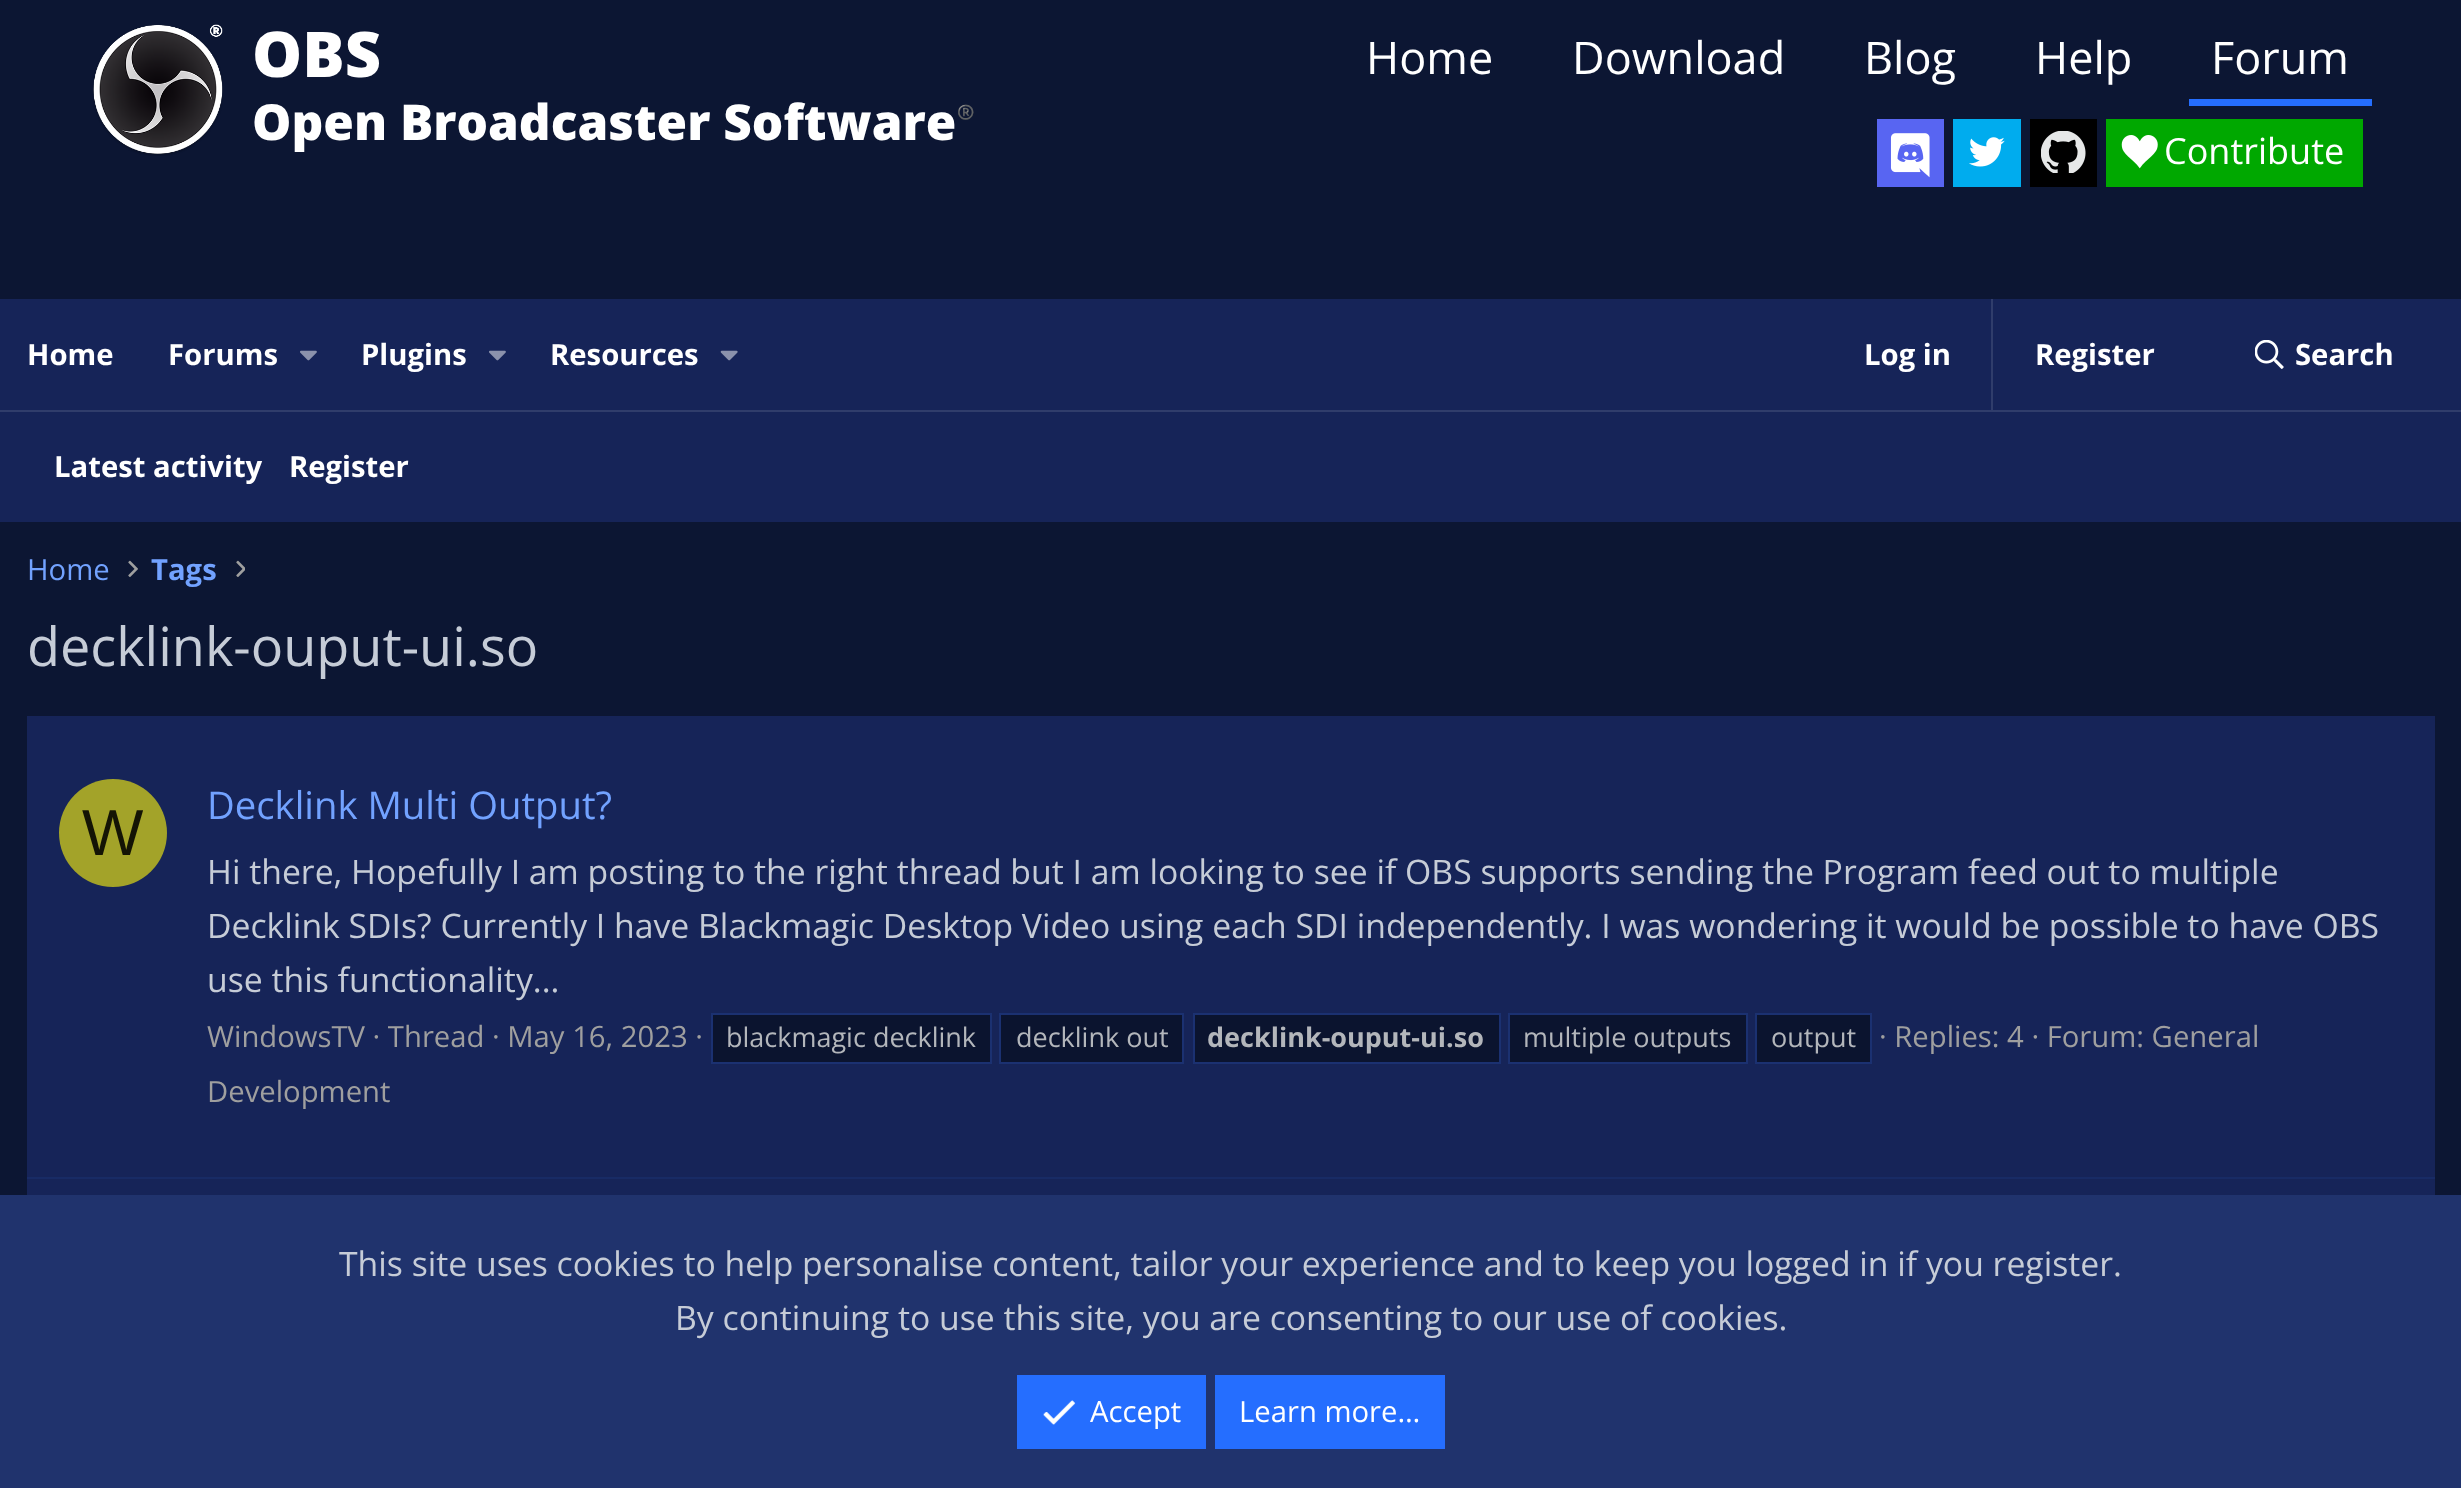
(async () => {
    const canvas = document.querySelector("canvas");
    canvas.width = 2461;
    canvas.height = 1488;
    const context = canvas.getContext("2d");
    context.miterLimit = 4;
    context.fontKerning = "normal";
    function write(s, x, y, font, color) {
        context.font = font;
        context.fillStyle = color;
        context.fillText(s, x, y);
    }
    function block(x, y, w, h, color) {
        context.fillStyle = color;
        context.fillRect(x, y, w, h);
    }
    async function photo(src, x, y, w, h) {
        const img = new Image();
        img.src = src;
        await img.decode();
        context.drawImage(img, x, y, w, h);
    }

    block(0, 0, 2461, 1488, "rgb(12, 22, 51)");
    await photo("media/1.png", 93, 24, 130, 132);
    write("OBS", 252, 77, "800 63px Open Sans", "rgb(255, 255, 255)");
    write("Open Broadcaster Software", 252, 140, "800 49.5px Open Sans", "rgb(255, 255, 255)");
    write("®️", 957, 117, "bold 14px Noto Color Emoji", "rgb(255, 255, 255)");
    write("Home", 1366, 74, "45px Open Sans", "rgb(255, 255, 255)");
    write("Download", 1572, 74, "45px Open Sans", "rgb(255, 255, 255)");
    write("Blog", 1864, 74, "45px Open Sans", "rgb(255, 255, 255)");
    write("Help", 2035, 74, "45px Open Sans", "rgb(255, 255, 255)");
    block(2189, 99, 183, 7, "rgb(37, 110, 255)");
    write("Forum", 2211, 74, "45px Open Sans", "rgb(255, 255, 255)");
    block(1877, 119, 67, 68, "rgb(88, 101, 242)");
    await photo("media/2.png", 1890, 133, 40, 45);
    block(1953, 119, 68, 68, "rgb(0, 172, 238)");
    await photo("media/3.png", 1969, 137, 36, 30);
    block(2030, 119, 67, 68, "rgb(0, 0, 0)");
    await photo("media/4.png", 2041, 131, 45, 42);
    block(2106, 119, 257, 68, "rgb(0, 168, 0)");
    await photo("media/5.png", 2121, 135, 37, 34);
    write("Contribute", 2164, 164, "36px Open Sans", "rgb(255, 255, 255)");
    block(0, 299, 2461, 111, "rgb(22, 36, 88)");
    write("Home", 27, 365, "bold 29.25px Open Sans", "rgb(255, 255, 255)");
    write("Forums", 168, 365, "bold 29.25px Open Sans", "rgb(255, 255, 255)");
    await photo("media/6.png", 300, 350, 17, 11);
    write("Plugins", 361, 365, "bold 29.25px Open Sans", "rgb(255, 255, 255)");
    await photo("media/6.png", 489, 350, 17, 11);
    write("Resources", 550, 365, "bold 29.25px Open Sans", "rgb(255, 255, 255)");
    await photo("media/7.png", 720, 350, 18, 11);
    write("Log in", 1864, 365, "bold 29.25px Open Sans", "rgb(255, 255, 255)");
    block(1991, 299, 2, 111, "rgb(48, 61, 107)");
    write("Register", 2035, 365, "bold 29.25px Open Sans", "rgb(255, 255, 255)");
    await photo("media/8.png", 2255, 340, 29, 29);
    write("Search", 2295, 365, "bold 29.25px Open Sans", "rgb(255, 255, 255)");
    block(0, 412, 2461, 110, "rgb(22, 36, 88)");
    block(0, 410, 2461, 2, "rgb(48, 61, 107)");
    write("Latest activity", 54, 477, "bold 29.25px Open Sans", "rgb(255, 255, 255)");
    write("Register", 289, 477, "bold 29.25px Open Sans", "rgb(255, 255, 255)");
    write("Home", 27, 580, "29.25px Open Sans", "rgb(114, 162, 255)");
    await photo("media/9.png", 128, 560, 10, 17);
    write("Tags", 151, 580, "bold 29.25px Open Sans", "rgb(114, 162, 255)");
    await photo("media/10.png", 236, 560, 9, 17);
    write("decklink-ouput-ui.so", 27, 666, "54px Open Sans", "rgb(198, 204, 215)");
    block(27, 716, 2408, 479, "rgb(22, 36, 88)");
    context.fillStyle = "rgb(163, 163, 41)";
    context.beginPath();
    context.arc(113, 833, 54, 0, Math.PI * 2);
    context.fill();
    write("W", 82, 855, "65px Liberation Sans", "rgb(20, 20, 5)");
    write("Decklink Multi Output?", 207, 819, "38.25px Open Sans", "rgb(114, 162, 255)");
    write("Hi there, Hopefully I am posting to the right thread but I am looking to see if OBS supports sending the Program feed out to multiple", 207, 884, "33.75px Open Sans", "rgb(198, 204, 215)");
    write("Decklink SDIs? Currently I have Blackmagic Desktop Video using each SDI independently. I was wondering it would be possible to have OBS", 207, 938, "33.75px Open Sans", "rgb(198, 204, 215)");
    write("use this functionality...", 207, 992, "33.75px Open Sans", "rgb(198, 204, 215)");
    write("WindowsTV · Thread · May 16, 2023 ·", 207, 1047, "29.25px Open Sans", "rgb(159, 159, 159)");
    context.fillStyle = "rgb(11, 20, 47)";
    context.beginPath();
    context.rect(712, 1014, 279, 49);
    context.fill();
    context.strokeStyle = "rgb(27, 49, 113)";
    context.lineWidth = 2;
    context.stroke();
    write("blackmagic decklink", 726, 1047, "27px Open Sans", "rgb(179, 182, 187)");
    context.fillStyle = "rgb(11, 20, 47)";
    context.beginPath();
    context.rect(1000, 1014, 183, 49);
    context.fill();
    context.stroke();
    write("decklink out", 1016, 1047, "27px Open Sans", "rgb(179, 182, 187)");
    context.fillStyle = "rgb(11, 20, 47)";
    context.beginPath();
    context.rect(1194, 1014, 306, 49);
    context.fill();
    context.stroke();
    write("decklink-ouput-ui.so", 1207, 1047, "bold 27px Open Sans", "rgb(179, 182, 187)");
    context.fillStyle = "rgb(11, 20, 47)";
    context.beginPath();
    context.rect(1509, 1014, 238, 49);
    context.fill();
    context.stroke();
    write("multiple outputs", 1523, 1047, "27px Open Sans", "rgb(179, 182, 187)");
    context.fillStyle = "rgb(11, 20, 47)";
    context.beginPath();
    context.rect(1756, 1014, 115, 49);
    context.fill();
    context.stroke();
    write("output", 1771, 1047, "27px Open Sans", "rgb(179, 182, 187)");
    write("· Replies: 4 · Forum: General", 1879, 1047, "29.25px Open Sans", "rgb(159, 159, 159)");
    write("Development", 207, 1102, "29.25px Open Sans", "rgb(159, 159, 159)");
    block(27, 1177, 2408, 2, "rgb(24, 43, 101)");
    block(0, 1195, 2461, 293, "rgb(32, 51, 109)");
    write("This site uses cookies to help personalise content, tailor your experience and to keep you logged in if you register.", 339, 1276, "33.75px Open Sans", "rgb(198, 204, 215)");
    write("By continuing to use this site, you are consenting to our use of cookies.", 675, 1330, "33.75px Open Sans", "rgb(198, 204, 215)");
    block(1017, 1375, 189, 74, "rgb(37, 110, 255)");
    await photo("media/11.png", 1043, 1400, 33, 25);
    write("Accept", 1090, 1422, "29.25px Open Sans", "rgb(255, 255, 255)");
    block(1215, 1375, 230, 74, "rgb(37, 110, 255)");
    write("Learn more…", 1239, 1422, "29.25px Open Sans", "rgb(255, 255, 255)");
})();
